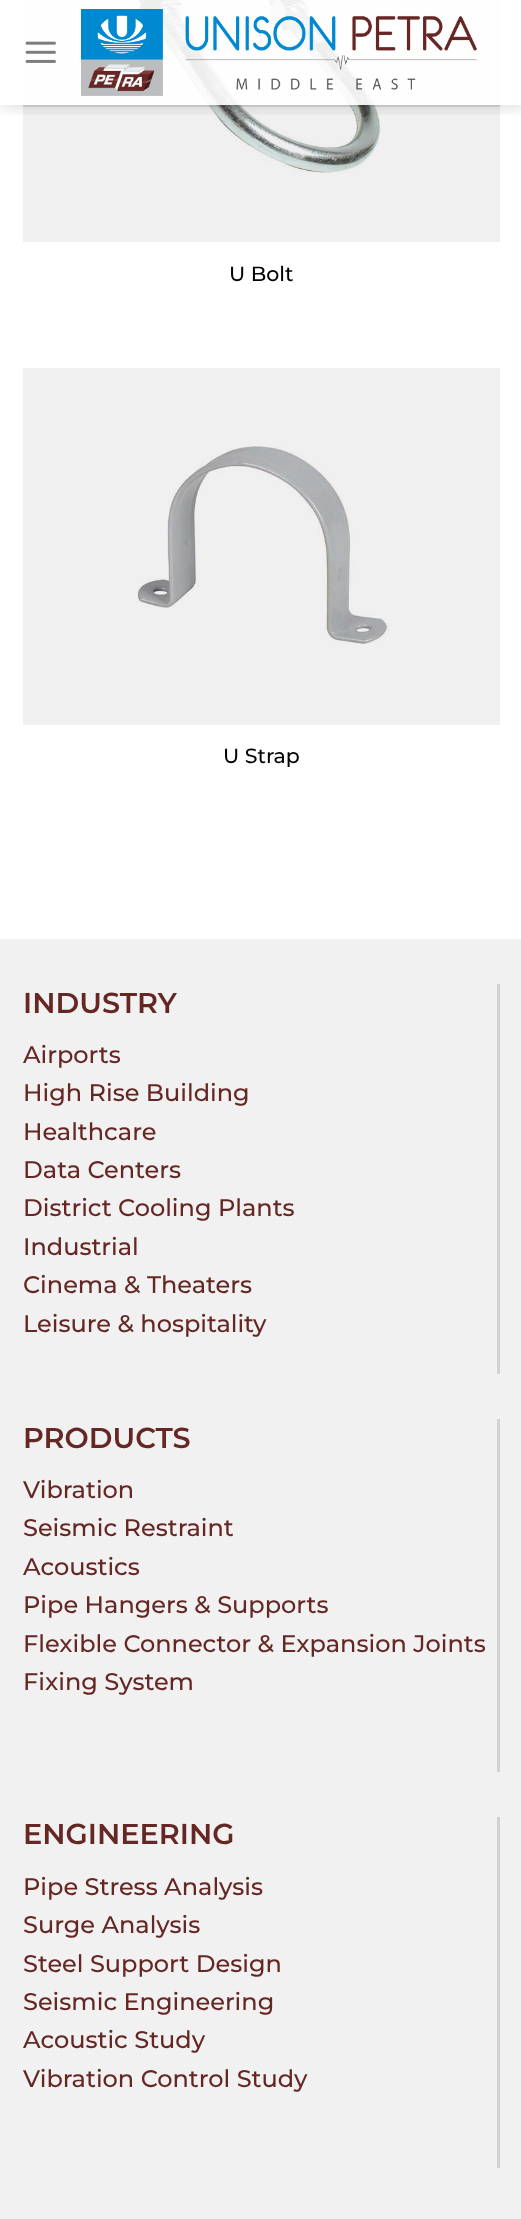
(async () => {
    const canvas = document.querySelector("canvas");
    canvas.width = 521;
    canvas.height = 2219;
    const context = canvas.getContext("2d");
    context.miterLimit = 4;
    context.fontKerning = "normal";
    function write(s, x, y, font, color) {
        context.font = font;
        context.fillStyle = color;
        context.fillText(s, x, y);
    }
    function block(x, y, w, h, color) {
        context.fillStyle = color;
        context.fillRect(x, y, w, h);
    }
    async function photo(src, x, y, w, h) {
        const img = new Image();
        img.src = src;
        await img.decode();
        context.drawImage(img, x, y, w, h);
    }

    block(0, 0, 521, 2219, "rgb(255, 255, 255)");
    block(23, 368, 477, 357, "rgb(241, 240, 240)");
    block(23, 0, 477, 242, "rgb(241, 240, 240)");
    await photo("media/3.png", 136, 0, 245, 173);
    context.save();
    context.beginPath();
    context.rect(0, 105, 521, 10);
    context.clip();
    context.fillStyle = "rgba(0, 0, 0, 0.15)";
    context.filter = "blur(7.5px)";
    context.beginPath();
    context.rect(2, 2, 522, 105);
    context.fill();
    context.filter = "none";
    context.restore();
    block(23, 0, 477, 105, "rgba(255, 255, 255, 0.9)");
    await photo("media/1.png", 25, 41, 31, 22);
    await photo("media/2.png", 81, 9, 396, 87);
    block(23, 105, 477, 2, "rgba(0, 0, 0, 0.1)");
    write("U Bolt", 229, 281, "500 20.5px Montserrat", "rgb(0, 0, 0)");
    await photo("media/4.png", 137, 446, 253, 198);
    write("U Strap", 223, 763, "500 20.5px Montserrat", "rgb(0, 0, 0)");
    block(0, 939, 521, 1280, "rgb(241, 241, 241)");
    write("INDUSTRY", 23, 1013, "600 28.75px Montserrat", "rgb(101, 39, 36)");
    write("Airports", 23, 1063, "500 24px Montserrat", "rgb(101, 39, 36)");
    write("High Rise Building", 23, 1101, "500 24px Montserrat", "rgb(101, 39, 36)");
    write("Healthcare", 23, 1140, "500 24px Montserrat", "rgb(101, 39, 36)");
    write("Data Centers", 23, 1178, "500 24px Montserrat", "rgb(101, 39, 36)");
    write("District Cooling Plants", 23, 1216, "500 24px Montserrat", "rgb(101, 39, 36)");
    write("Industrial", 23, 1255, "500 24px Montserrat", "rgb(101, 39, 36)");
    write("Cinema & Theaters", 23, 1293, "500 24px Montserrat", "rgb(101, 39, 36)");
    write("Leisure & hospitality", 23, 1332, "500 24px Montserrat", "rgb(101, 39, 36)");
    block(497, 984, 3, 390, "rgb(210, 210, 210)");
    write("PRODUCTS", 23, 1448, "600 28.75px Montserrat", "rgb(101, 39, 36)");
    write("Vibration", 23, 1498, "500 24px Montserrat", "rgb(101, 39, 36)");
    write("Seismic Restraint", 23, 1536, "500 24px Montserrat", "rgb(101, 39, 36)");
    write("Acoustics", 23, 1575, "500 24px Montserrat", "rgb(101, 39, 36)");
    write("Pipe Hangers & Supports", 23, 1613, "500 24px Montserrat", "rgb(101, 39, 36)");
    write("Flexible Connector & Expansion Joints", 23, 1652, "500 24px Montserrat", "rgb(101, 39, 36)");
    write("Fixing System", 23, 1690, "500 24px Montserrat", "rgb(101, 39, 36)");
    block(497, 1419, 3, 353, "rgb(210, 210, 210)");
    write("ENGINEERING", 23, 1844, "600 28.75px Montserrat", "rgb(101, 39, 36)");
    write("Pipe Stress Analysis", 23, 1895, "500 24px Montserrat", "rgb(101, 39, 36)");
    write("Surge Analysis", 23, 1933, "500 24px Montserrat", "rgb(101, 39, 36)");
    write("Steel Support Design", 23, 1972, "500 24px Montserrat", "rgb(101, 39, 36)");
    write("Seismic Engineering", 23, 2010, "500 24px Montserrat", "rgb(101, 39, 36)");
    write("Acoustic Study", 23, 2048, "500 24px Montserrat", "rgb(101, 39, 36)");
    write("Vibration Control Study", 23, 2087, "500 24px Montserrat", "rgb(101, 39, 36)");
    block(497, 1817, 3, 351, "rgb(210, 210, 210)");
})();
